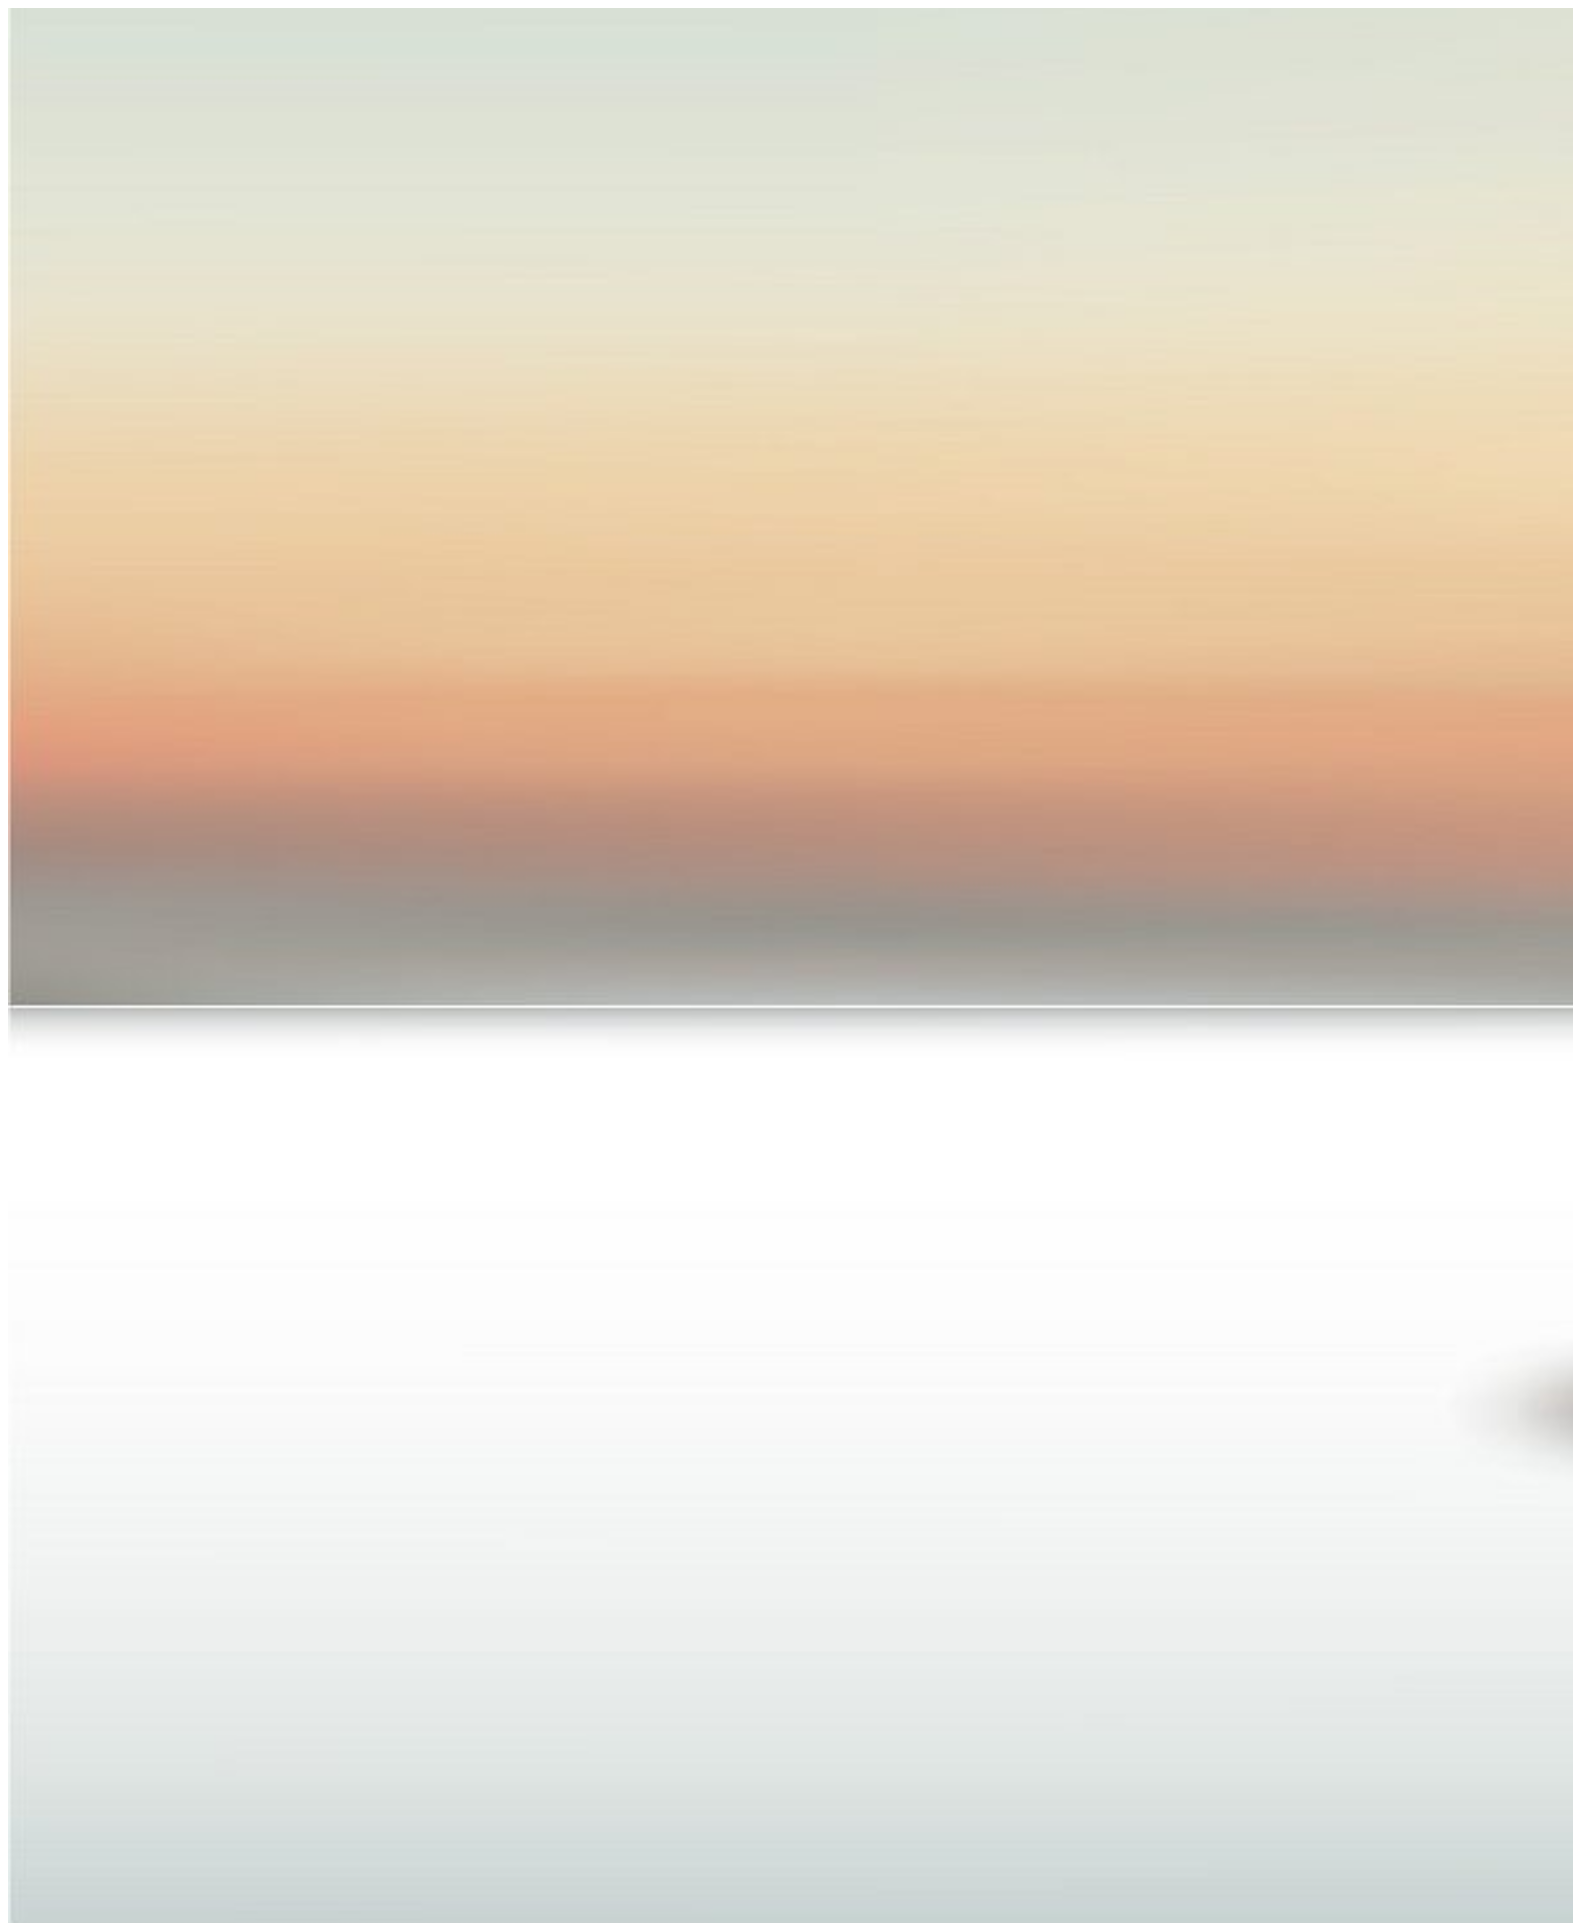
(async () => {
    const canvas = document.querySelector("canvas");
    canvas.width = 1573;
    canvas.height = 1923;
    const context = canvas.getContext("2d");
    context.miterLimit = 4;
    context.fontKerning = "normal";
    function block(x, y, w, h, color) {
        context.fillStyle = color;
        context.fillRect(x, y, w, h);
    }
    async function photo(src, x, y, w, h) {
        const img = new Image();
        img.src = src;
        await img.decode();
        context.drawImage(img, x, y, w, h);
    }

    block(0, 0, 1573, 1923, "rgb(255, 255, 255)");
    await photo("media/1.png", 8, 8, 1565, 1915);
})();
